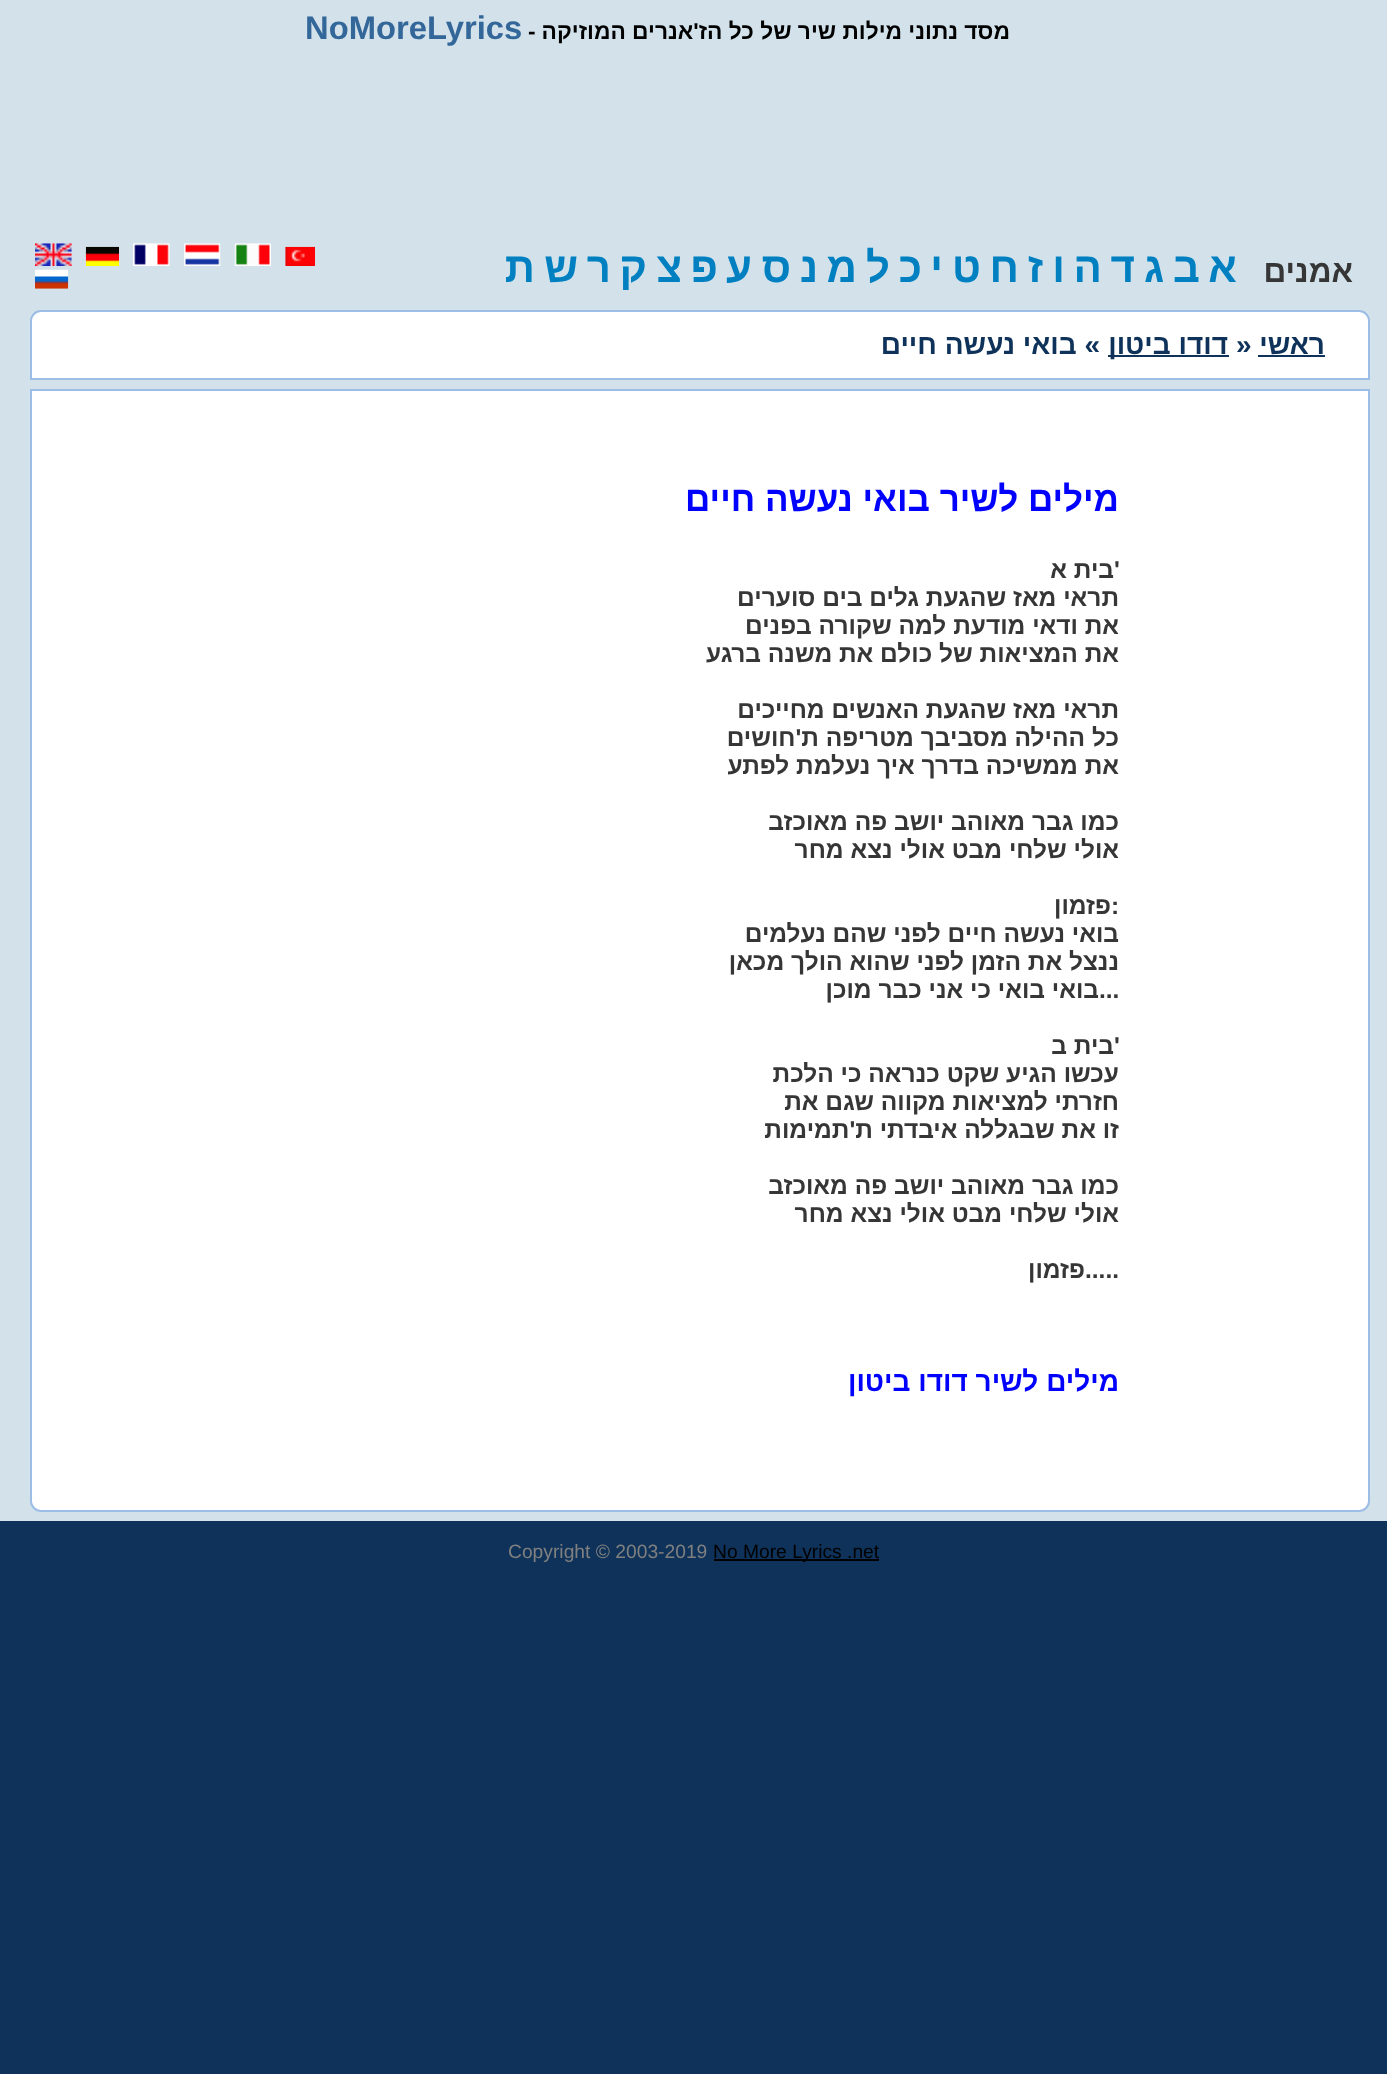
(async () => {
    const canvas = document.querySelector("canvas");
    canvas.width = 1387;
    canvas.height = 2074;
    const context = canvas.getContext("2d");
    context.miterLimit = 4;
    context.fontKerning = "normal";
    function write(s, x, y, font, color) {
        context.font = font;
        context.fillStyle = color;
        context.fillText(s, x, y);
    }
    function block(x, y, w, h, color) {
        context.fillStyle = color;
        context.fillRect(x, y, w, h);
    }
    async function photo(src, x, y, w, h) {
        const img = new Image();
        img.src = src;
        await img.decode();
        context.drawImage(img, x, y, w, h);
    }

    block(0, 0, 1387, 2074, "rgb(14, 50, 89)");
    block(0, 0, 1387, 1521, "rgb(211, 226, 234)");
    context.direction = "rtl";
    write("מסד נתוני מילות שיר של כל הז'אנרים המוזיקה", 1010, 39, "bold 22.75px Liberation Sans", "rgb(0, 0, 0)");
    context.direction = "ltr";
    write("-", 528, 39, "bold 22.75px Liberation Sans", "rgb(0, 0, 0)");
    write("NoMoreLyrics", 305, 39, "bold 32.75px Liberation Sans", "rgb(51, 102, 153)");
    context.direction = "rtl";
    write("אמנים", 1353, 282, "bold 31.5px Liberation Sans", "rgb(54, 54, 54)");
    write("א", 1237, 282, "bold 42px Liberation Sans", "rgb(0, 128, 193)");
    write("ב", 1200, 282, "bold 42px Liberation Sans", "rgb(0, 128, 193)");
    write("ג", 1164, 282, "bold 42px Liberation Sans", "rgb(0, 128, 193)");
    write("ד", 1135, 282, "bold 42px Liberation Sans", "rgb(0, 128, 193)");
    write("ה", 1102, 282, "bold 42px Liberation Sans", "rgb(0, 128, 193)");
    write("ו", 1065, 282, "bold 42px Liberation Sans", "rgb(0, 128, 193)");
    write("ז", 1043, 282, "bold 42px Liberation Sans", "rgb(0, 128, 193)");
    write("ח", 1019, 282, "bold 42px Liberation Sans", "rgb(0, 128, 193)");
    write("ט", 981, 282, "bold 42px Liberation Sans", "rgb(0, 128, 193)");
    write("י", 943, 282, "bold 42px Liberation Sans", "rgb(0, 128, 193)");
    write("כ", 922, 282, "bold 42px Liberation Sans", "rgb(0, 128, 193)");
    write("ל", 890, 282, "bold 42px Liberation Sans", "rgb(0, 128, 193)");
    write("מ", 857, 282, "bold 42px Liberation Sans", "rgb(0, 128, 193)");
    write("נ", 818, 282, "bold 42px Liberation Sans", "rgb(0, 128, 193)");
    write("ס", 791, 282, "bold 42px Liberation Sans", "rgb(0, 128, 193)");
    write("ע", 752, 282, "bold 42px Liberation Sans", "rgb(0, 128, 193)");
    write("פ", 718, 282, "bold 42px Liberation Sans", "rgb(0, 128, 193)");
    write("צ", 682, 282, "bold 42px Liberation Sans", "rgb(0, 128, 193)");
    write("ק", 647, 282, "bold 42px Liberation Sans", "rgb(0, 128, 193)");
    write("ר", 611, 282, "bold 42px Liberation Sans", "rgb(0, 128, 193)");
    write("ש", 578, 282, "bold 42px Liberation Sans", "rgb(0, 128, 193)");
    write("ת", 535, 282, "bold 42px Liberation Sans", "rgb(0, 128, 193)");
    await photo("media/1.png", 285, 246, 30, 20);
    await photo("media/2.png", 234, 243, 37, 23);
    await photo("media/3.png", 184, 243, 37, 23);
    await photo("media/4.png", 133, 243, 37, 23);
    await photo("media/5.png", 85, 246, 34, 20);
    await photo("media/6.png", 35, 243, 37, 23);
    await photo("media/7.png", 35, 269, 34, 20);
    context.fillStyle = "rgb(255, 255, 255)";
    context.beginPath();
    context.roundRect(31, 311, 1338, 68, [10, 10, 0, 0]);
    context.fill();
    context.strokeStyle = "rgb(156, 190, 230)";
    context.lineWidth = 2;
    context.stroke();
    write("ראשי", 1325, 354, "bold 28px Liberation Sans", "rgb(14, 50, 89)");
    block(1258, 355, 67, 2, "rgb(14, 50, 89)");
    context.direction = "ltr";
    write("»", 1236, 354, "bold 28px Liberation Sans", "rgb(14, 50, 89)");
    block(1108, 355, 121, 2, "rgb(14, 50, 89)");
    context.direction = "rtl";
    write("דודו ביטון", 1228, 354, "bold 28px Liberation Sans", "rgb(14, 50, 89)");
    write("» בואי נעשה חיים", 1100, 354, "bold 28px Liberation Sans", "rgb(14, 50, 89)");
    context.fillStyle = "rgb(255, 255, 255)";
    context.beginPath();
    context.roundRect(31, 390, 1338, 1121, [0, 0, 10, 10]);
    context.fill();
    context.stroke();
    write("מילים לשיר בואי נעשה חיים", 1119, 511, "bold 35px Liberation Sans", "rgb(0, 0, 255)");
    context.direction = "ltr";
    write("'", 1114, 578, "bold 24.5px Liberation Sans", "rgb(54, 54, 54)");
    context.direction = "rtl";
    write("בית א", 1114, 578, "bold 24.5px Liberation Sans", "rgb(54, 54, 54)");
    write("תראי מאז שהגעת גלים בים סוערים", 1119, 606, "bold 24.5px Liberation Sans", "rgb(54, 54, 54)");
    write("את ודאי מודעת למה שקורה בפנים", 1119, 634, "bold 24.5px Liberation Sans", "rgb(54, 54, 54)");
    write("את המציאות של כולם את משנה ברגע", 1119, 662, "bold 24.5px Liberation Sans", "rgb(54, 54, 54)");
    write("תראי מאז שהגעת האנשים מחייכים", 1119, 718, "bold 24.5px Liberation Sans", "rgb(54, 54, 54)");
    write("כל ההילה מסביבך מטריפה ת'חושים", 1119, 746, "bold 24.5px Liberation Sans", "rgb(54, 54, 54)");
    write("את ממשיכה בדרך איך נעלמת לפתע", 1119, 774, "bold 24.5px Liberation Sans", "rgb(54, 54, 54)");
    write("כמו גבר מאוהב יושב פה מאוכזב", 1119, 830, "bold 24.5px Liberation Sans", "rgb(54, 54, 54)");
    write("אולי שלחי מבט אולי נצא מחר", 1119, 858, "bold 24.5px Liberation Sans", "rgb(54, 54, 54)");
    context.direction = "ltr";
    write(":", 1111, 914, "bold 24.5px Liberation Sans", "rgb(54, 54, 54)");
    context.direction = "rtl";
    write("פזמון", 1111, 914, "bold 24.5px Liberation Sans", "rgb(54, 54, 54)");
    write("בואי נעשה חיים לפני שהם נעלמים", 1119, 942, "bold 24.5px Liberation Sans", "rgb(54, 54, 54)");
    write("ננצל את הזמן לפני שהוא הולך מכאן", 1119, 970, "bold 24.5px Liberation Sans", "rgb(54, 54, 54)");
    context.direction = "ltr";
    write("...", 1099, 998, "bold 24.5px Liberation Sans", "rgb(54, 54, 54)");
    context.direction = "rtl";
    write("בואי בואי כי אני כבר מוכן", 1099, 998, "bold 24.5px Liberation Sans", "rgb(54, 54, 54)");
    context.direction = "ltr";
    write("'", 1114, 1054, "bold 24.5px Liberation Sans", "rgb(54, 54, 54)");
    context.direction = "rtl";
    write("בית ב", 1114, 1054, "bold 24.5px Liberation Sans", "rgb(54, 54, 54)");
    write("עכשו הגיע שקט כנראה כי הלכת", 1119, 1082, "bold 24.5px Liberation Sans", "rgb(54, 54, 54)");
    write("חזרתי למציאות מקווה שגם את", 1119, 1110, "bold 24.5px Liberation Sans", "rgb(54, 54, 54)");
    write("זו את שבגללה איבדתי ת'תמימות", 1119, 1138, "bold 24.5px Liberation Sans", "rgb(54, 54, 54)");
    write("כמו גבר מאוהב יושב פה מאוכזב", 1119, 1194, "bold 24.5px Liberation Sans", "rgb(54, 54, 54)");
    write("אולי שלחי מבט אולי נצא מחר", 1119, 1222, "bold 24.5px Liberation Sans", "rgb(54, 54, 54)");
    context.direction = "ltr";
    write(".....", 1085, 1278, "bold 24.5px Liberation Sans", "rgb(54, 54, 54)");
    context.direction = "rtl";
    write("פזמון", 1085, 1278, "bold 24.5px Liberation Sans", "rgb(54, 54, 54)");
    write("מילים לשיר דודו ביטון", 1119, 1391, "bold 28px Liberation Sans", "rgb(0, 0, 255)");
    block(714, 1559, 165, 2, "rgb(0, 0, 0)");
    context.direction = "ltr";
    write("No More Lyrics .net", 713, 1558, "19.25px Liberation Sans", "rgb(0, 0, 0)");
    write("Copyright © 2003-2019", 508, 1558, "19.25px Liberation Sans", "rgb(128, 128, 128)");
})();
